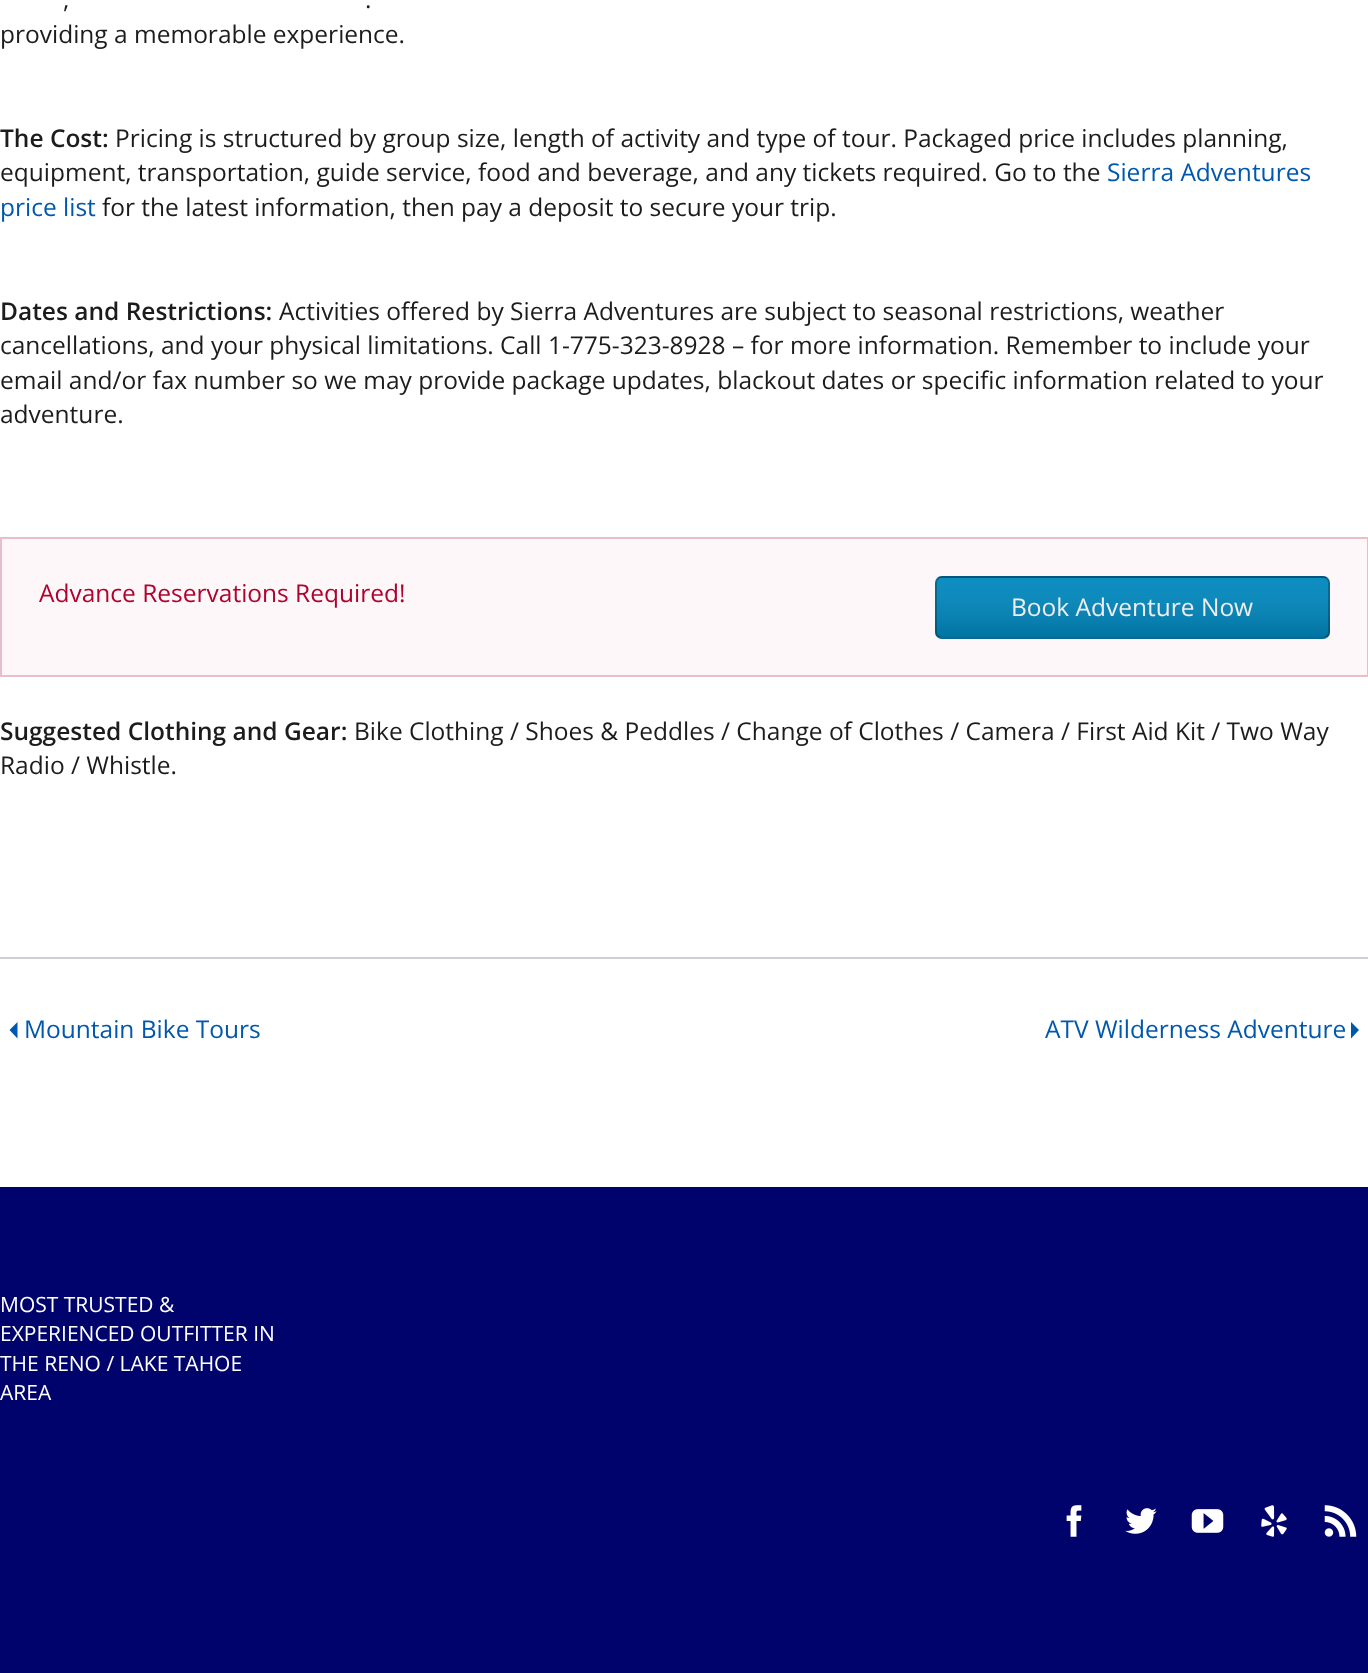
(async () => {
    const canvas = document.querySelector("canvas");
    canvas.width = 1368;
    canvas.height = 1673;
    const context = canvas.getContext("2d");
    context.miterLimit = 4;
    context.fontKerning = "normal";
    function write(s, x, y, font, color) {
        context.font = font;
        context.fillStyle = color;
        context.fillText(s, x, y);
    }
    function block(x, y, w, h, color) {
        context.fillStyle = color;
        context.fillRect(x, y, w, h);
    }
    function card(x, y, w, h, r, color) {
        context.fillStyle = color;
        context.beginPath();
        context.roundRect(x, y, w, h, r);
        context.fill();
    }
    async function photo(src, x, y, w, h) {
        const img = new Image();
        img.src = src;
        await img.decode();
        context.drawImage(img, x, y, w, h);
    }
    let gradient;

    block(0, 0, 1368, 1673, "rgb(255, 255, 255)");
    write(",", 63, 8, "24.5px Open Sans", "rgb(28, 28, 28)");
    write(".", 365, 8, "24.5px Open Sans", "rgb(28, 28, 28)");
    write("providing a memorable experience.", 0, 43, "24.5px Open Sans", "rgb(28, 28, 28)");
    write("The Cost:", 0, 147, "600 24.5px Open Sans", "rgb(28, 28, 28)");
    write("Pricing is structured by group size, length of activity and type of tour. Packaged price includes planning,", 115, 147, "24.5px Open Sans", "rgb(28, 28, 28)");
    write("equipment, transportation, guide service, food and beverage, and any tickets required. Go to the", 0, 181, "24.5px Open Sans", "rgb(28, 28, 28)");
    write("Sierra Adventures", 1107, 181, "24.5px Open Sans", "rgb(0, 88, 174)");
    write("price list", 0, 216, "24.5px Open Sans", "rgb(0, 88, 174)");
    write("for the latest information, then pay a deposit to secure your trip.", 102, 216, "24.5px Open Sans", "rgb(28, 28, 28)");
    write("Dates and Restrictions:", 0, 320, "600 24.5px Open Sans", "rgb(28, 28, 28)");
    write("Activities offered by Sierra Adventures are subject to seasonal restrictions, weather", 279, 320, "24.5px Open Sans", "rgb(28, 28, 28)");
    write("cancellations, and your physical limitations. Call 1-775-323-8928 – for more information. Remember to include your", 0, 354, "24.5px Open Sans", "rgb(28, 28, 28)");
    write("email and/or fax number so we may provide package updates, blackout dates or specific information related to your", 0, 389, "24.5px Open Sans", "rgb(28, 28, 28)");
    write("adventure.", 0, 423, "24.5px Open Sans", "rgb(28, 28, 28)");
    context.fillStyle = "rgb(253, 247, 249)";
    context.beginPath();
    context.rect(1, 538, 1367, 138);
    context.fill();
    context.strokeStyle = "rgb(230, 191, 201)";
    context.lineWidth = 2;
    context.stroke();
    write("Advance Reservations Required!", 39, 602, "24.5px Open Sans", "rgb(176, 2, 46)");
    card(935, 576, 395, 63, 7, "rgb(0, 135, 189)");
    context.save();
    context.beginPath();
    context.roundRect(935, 576, 395, 63, 7);
    context.clip();
    gradient = context.createLinearGradient(1132, 518, 1132, 578);
    gradient.addColorStop(0, "rgba(255, 255, 255, 0.05)");
    gradient.addColorStop(1, "rgba(0, 0, 0, 0.15)");
    context.fillStyle = gradient;
    context.fillRect(935, 576, 395, 2);
    gradient = context.createLinearGradient(1132, 578, 1132, 637);
    gradient.addColorStop(0, "rgba(255, 255, 255, 0.05)");
    gradient.addColorStop(1, "rgba(0, 0, 0, 0.15)");
    context.fillStyle = gradient;
    context.fillRect(935, 578, 395, 59);
    context.restore();
    gradient = context.createLinearGradient(1132, 637, 1132, 697);
    gradient.addColorStop(0, "rgba(255, 255, 255, 0.05)");
    gradient.addColorStop(1, "rgba(0, 0, 0, 0.15)");
    context.fillStyle = gradient;
    context.fillRect(935, 637, 395, 2);
    context.beginPath();
    context.roundRect(936, 577, 393, 61, 6);
    context.strokeStyle = "rgba(0, 0, 0, 0.25)";
    context.stroke();
    write("Book Adventure Now", 1011, 616, "24.5px Open Sans", "rgb(238, 238, 238)");
    write("Suggested Clothing and Gear:", 0, 740, "600 24.5px Open Sans", "rgb(28, 28, 28)");
    write("Bike Clothing / Shoes & Peddles / Change of Clothes / Camera / First Aid Kit / Two Way", 354, 740, "24.5px Open Sans", "rgb(28, 28, 28)");
    write("Radio / Whistle.", 0, 774, "24.5px Open Sans", "rgb(28, 28, 28)");
    block(0, 957, 1368, 2, "rgb(205, 208, 212)");
    context.fillStyle = "rgb(0, 88, 174)";
    context.beginPath();
    context.moveTo(17.5, 1038.5);
    context.lineTo(9.5, 1030);
    context.lineTo(17.5, 1022);
    context.closePath();
    context.fill();
    write("Mountain Bike Tours", 24, 1038, "24.5px Open Sans", "rgb(0, 88, 174)");
    write("ATV Wilderness Adventure", 1045, 1038, "24.5px Open Sans", "rgb(0, 88, 174)");
    context.beginPath();
    context.moveTo(1351, 1038.5);
    context.lineTo(1359, 1030);
    context.lineTo(1351, 1022);
    context.closePath();
    context.fill();
    block(0, 1187, 1368, 486, "rgb(0, 3, 107)");
    write("MOST TRUSTED &", 0, 1312, "21px Open Sans", "rgb(255, 255, 255)");
    write("EXPERIENCED OUTFITTER IN", 0, 1341, "21px Open Sans", "rgb(255, 255, 255)");
    write("THE RENO / LAKE TAHOE", 0, 1371, "21px Open Sans", "rgb(255, 255, 255)");
    write("AREA", 0, 1400, "21px Open Sans", "rgb(255, 255, 255)");
    await photo("media/1.png", 1066, 1505, 16, 32);
    await photo("media/2.png", 1125, 1508, 32, 26);
    await photo("media/3.png", 1191, 1509, 33, 24);
    await photo("media/4.png", 1261, 1505, 26, 32);
    await photo("media/5.png", 1324, 1505, 33, 32);
})();
